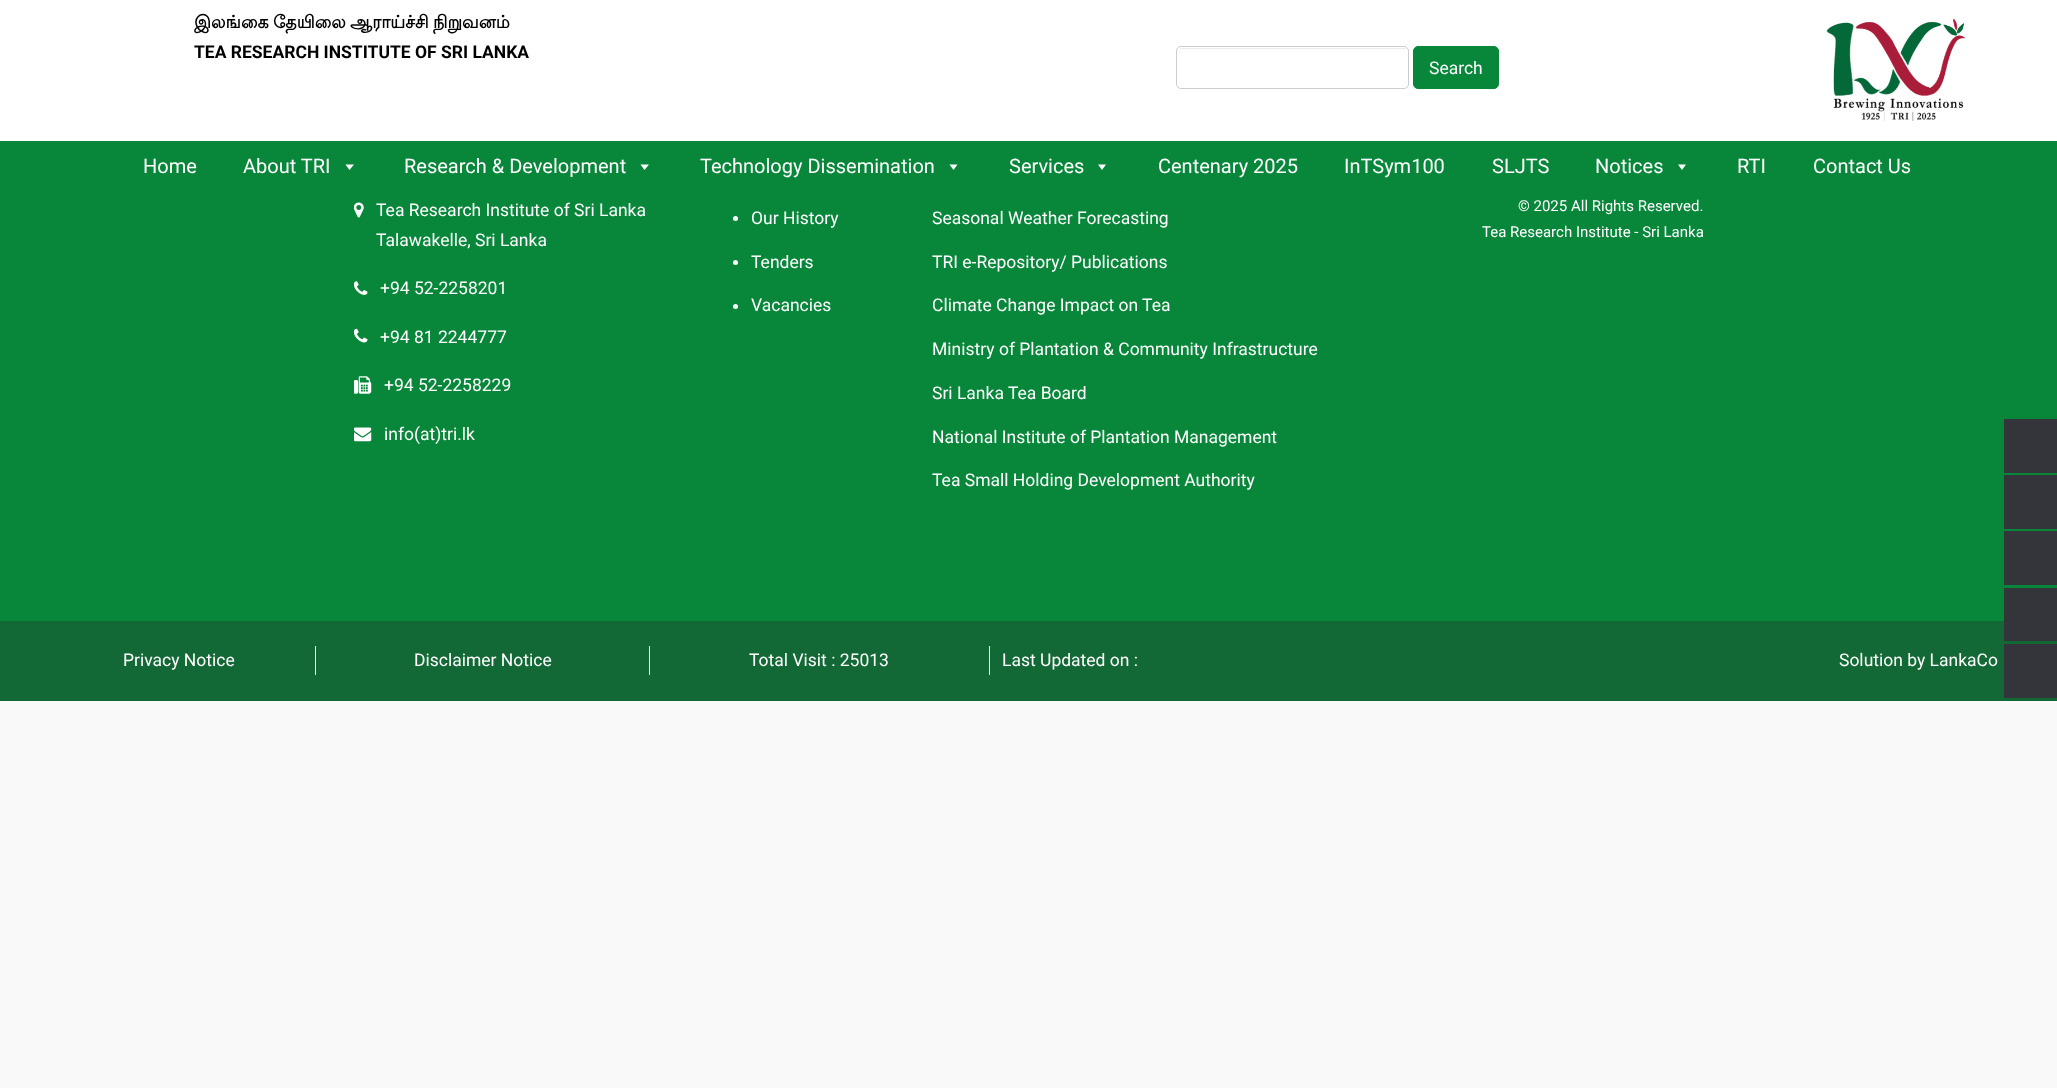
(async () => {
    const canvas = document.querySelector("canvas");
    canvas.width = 2057;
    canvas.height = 1088;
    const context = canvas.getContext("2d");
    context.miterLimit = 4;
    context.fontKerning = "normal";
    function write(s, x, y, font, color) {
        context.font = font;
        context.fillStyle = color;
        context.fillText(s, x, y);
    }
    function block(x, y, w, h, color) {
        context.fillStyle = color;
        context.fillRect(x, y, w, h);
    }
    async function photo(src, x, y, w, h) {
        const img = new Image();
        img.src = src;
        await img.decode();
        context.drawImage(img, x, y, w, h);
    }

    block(0, 0, 2057, 1088, "rgb(249, 249, 249)");
    block(0, 0, 2057, 141, "rgb(255, 255, 255)");
    context.wordSpacing = "-1px";
    write("இலங்கை தேயிலை ஆராய்ச்சி நிறுவனம்", 194, 28, "bold 17.5px Lohit Tamil", "rgb(0, 0, 0)");
    context.wordSpacing = "0px";
    write("TEA RESEARCH INSTITUTE OF SRI LANKA", 194, 58, "bold 17.5px Roboto", "rgb(0, 0, 0)");
    context.fillStyle = "rgb(236, 236, 236)";
    context.beginPath();
    context.moveTo(1181, 49);
    context.lineTo(1404, 49);
    context.bezierCurveTo(1406, 49, 1408, 50, 1408, 52);
    context.bezierCurveTo(1408, 50, 1406, 48, 1404, 48);
    context.lineTo(1182, 48);
    context.bezierCurveTo(1181, 48, 1179, 49, 1179, 50);
    context.closePath();
    context.fill();
    context.beginPath();
    context.roundRect(1176.5, 46.5, 232, 42, 4.5);
    context.strokeStyle = "rgb(204, 204, 204)";
    context.stroke();
    context.fillStyle = "rgb(8, 135, 59)";
    context.beginPath();
    context.roundRect(1413.5, 46.5, 85, 42, 4.5);
    context.fill();
    context.strokeStyle = "rgb(8, 135, 59)";
    context.stroke();
    write("Search", 1429, 74, "17.5px Roboto", "rgb(255, 255, 255)");
    await photo("media/1.png", 1826, 18, 140, 103);
    block(0, 141, 2057, 480, "rgb(8, 135, 59)");
    write("Home", 143, 173, "20px Roboto", "rgb(255, 255, 255)");
    write("About TRI", 243, 173, "20px Roboto", "rgb(255, 255, 255)");
    context.beginPath();
    context.moveTo(354, 164.5);
    context.lineTo(349.5, 170);
    context.lineTo(345.5, 164.5);
    context.closePath();
    context.fill();
    write("Research & Development", 404, 173, "20px Roboto", "rgb(255, 255, 255)");
    context.beginPath();
    context.moveTo(649, 164.5);
    context.lineTo(644.5, 170);
    context.lineTo(640.5, 164.5);
    context.closePath();
    context.fill();
    write("Technology Dissemination", 700, 173, "20px Roboto", "rgb(255, 255, 255)");
    context.beginPath();
    context.moveTo(957.5, 164.5);
    context.lineTo(953.5, 170);
    context.lineTo(949.5, 164.5);
    context.closePath();
    context.fill();
    write("Services", 1009, 173, "20px Roboto", "rgb(255, 255, 255)");
    context.beginPath();
    context.moveTo(1106, 164.5);
    context.lineTo(1102, 170);
    context.lineTo(1098, 164.5);
    context.closePath();
    context.fill();
    write("Centenary 2025", 1158, 173, "20px Roboto", "rgb(255, 255, 255)");
    write("InTSym100", 1344, 173, "20px Roboto", "rgb(255, 255, 255)");
    write("SLJTS", 1492, 173, "20px Roboto", "rgb(255, 255, 255)");
    write("Notices", 1595, 173, "20px Roboto", "rgb(255, 255, 255)");
    context.beginPath();
    context.moveTo(1686, 164.5);
    context.lineTo(1682, 170);
    context.lineTo(1678, 164.5);
    context.closePath();
    context.fill();
    write("RTI", 1737, 173, "20px Roboto", "rgb(255, 255, 255)");
    write("Contact Us", 1813, 173, "20px Roboto", "rgb(255, 255, 255)");
    await photo("media/2.png", 354, 202, 10, 16);
    write("Tea Research Institute of Sri Lanka", 376, 216, "17.5px Roboto", "rgb(255, 255, 255)");
    write("Talawakelle, Sri Lanka", 376, 246, "17.5px Roboto", "rgb(255, 255, 255)");
    await photo("media/3.png", 354, 281, 14, 14);
    write("+94 52-2258201", 380, 294, "17.5px Roboto", "rgb(255, 255, 255)");
    await photo("media/4.png", 354, 328, 14, 15);
    write("+94 81 2244777", 380, 343, "17.5px Roboto", "rgb(255, 255, 255)");
    await photo("media/5.png", 354, 376, 18, 18);
    write("+94 52-2258229", 384, 391, "17.5px Roboto", "rgb(255, 255, 255)");
    await photo("media/6.png", 354, 427, 18, 15);
    write("info(at)tri.lk", 384, 440, "17.5px Roboto", "rgb(255, 255, 255)");
    context.beginPath();
    context.arc(735.5, 218.5, 2.5, 0, Math.PI * 2);
    context.fill();
    write("Our History", 751, 224, "17.5px Roboto", "rgb(255, 255, 255)");
    context.beginPath();
    context.arc(735.5, 262.5, 2.5, 0, Math.PI * 2);
    context.fill();
    write("Tenders", 751, 268, "17.5px Roboto", "rgb(255, 255, 255)");
    context.beginPath();
    context.arc(735.5, 306.5, 2.5, 0, Math.PI * 2);
    context.fill();
    write("Vacancies", 751, 311, "17.5px Roboto", "rgb(255, 255, 255)");
    write("Seasonal Weather Forecasting", 932, 224, "17.5px Roboto", "rgb(255, 255, 255)");
    write("TRI e-Repository/ Publications", 932, 268, "17.5px Roboto", "rgb(255, 255, 255)");
    write("Climate Change Impact on Tea", 932, 311, "17.5px Roboto", "rgb(255, 255, 255)");
    write("Ministry of Plantation & Community Infrastructure", 932, 355, "17.5px Roboto", "rgb(255, 255, 255)");
    write("Sri Lanka Tea Board", 932, 399, "17.5px Roboto", "rgb(255, 255, 255)");
    write("National Institute of Plantation Management", 932, 443, "17.5px Roboto", "rgb(255, 255, 255)");
    write("Tea Small Holding Development Authority", 932, 486, "17.5px Roboto", "rgb(255, 255, 255)");
    write("© 2025 All Rights Reserved.", 1518, 211, "15px Roboto", "rgb(255, 255, 255)");
    write("Tea Research Institute - Sri Lanka", 1482, 237, "15px Roboto", "rgb(255, 255, 255)");
    block(0, 621, 2057, 80, "rgb(19, 105, 53)");
    block(315, 646, 1, 29, "rgb(255, 255, 255)");
    write("Privacy Notice", 123, 666, "17.5px Roboto", "rgb(255, 255, 255)");
    block(649, 646, 1, 29, "rgb(255, 255, 255)");
    write("Disclaimer Notice", 414, 666, "17.5px Roboto", "rgb(255, 255, 255)");
    block(989, 646, 1, 29, "rgb(255, 255, 255)");
    write("Total Visit : 25013", 749, 666, "17.5px Roboto", "rgb(255, 255, 255)");
    write("Last Updated on :", 1002, 666, "17.5px Roboto", "rgb(255, 255, 255)");
    write("Solution by LankaCo", 1839, 666, "17.5px Roboto", "rgb(255, 255, 255)");
    block(2004, 419, 53, 54, "rgb(51, 53, 59)");
    block(2004, 475, 53, 54, "rgb(51, 53, 59)");
    block(2004, 531, 53, 54, "rgb(51, 53, 59)");
    block(2004, 588, 53, 53, "rgb(51, 53, 59)");
    block(2004, 644, 53, 54, "rgb(51, 53, 59)");
})();
